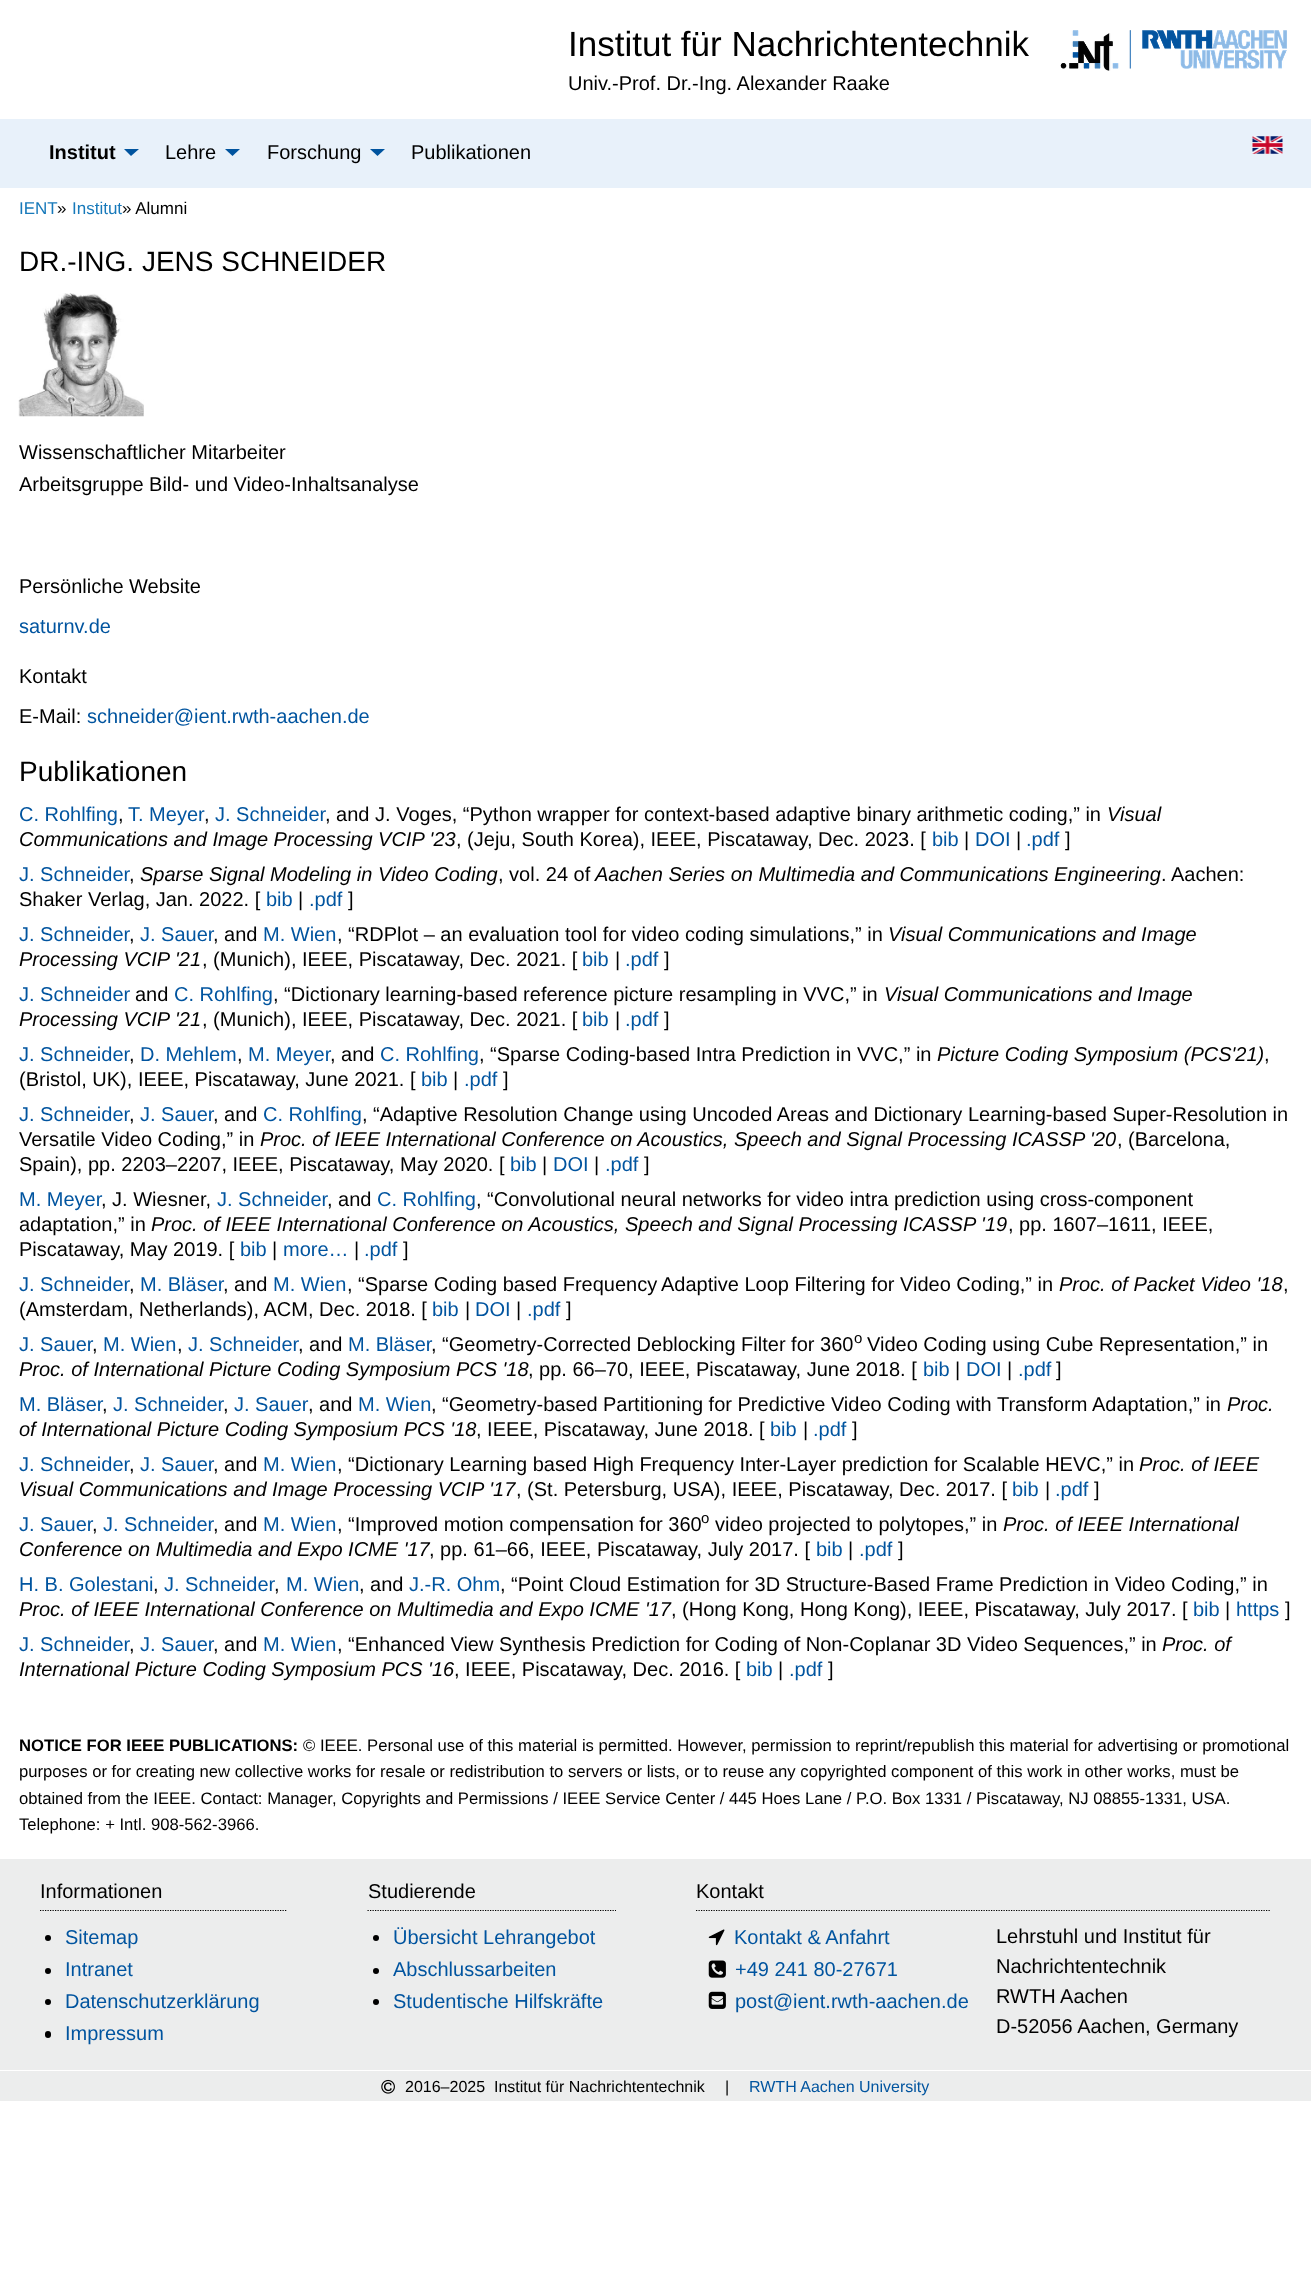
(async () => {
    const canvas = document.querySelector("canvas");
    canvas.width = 1311;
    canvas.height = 2284;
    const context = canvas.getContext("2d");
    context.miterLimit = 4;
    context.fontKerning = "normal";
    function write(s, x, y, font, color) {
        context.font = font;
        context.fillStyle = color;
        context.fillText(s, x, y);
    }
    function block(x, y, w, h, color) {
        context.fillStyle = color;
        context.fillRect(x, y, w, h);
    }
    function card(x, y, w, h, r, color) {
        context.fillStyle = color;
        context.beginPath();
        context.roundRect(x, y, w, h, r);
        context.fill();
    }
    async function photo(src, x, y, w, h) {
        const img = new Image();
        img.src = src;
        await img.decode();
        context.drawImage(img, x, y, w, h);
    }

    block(0, 0, 1311, 2284, "rgb(255, 255, 255)");
    write("Institut für Nachrichtentechnik", 568, 56, "35px Liberation Sans", "rgb(0, 0, 0)");
    write("Univ.-Prof. Dr.-Ing. Alexander Raake", 568, 90, "20px Liberation Sans", "rgb(0, 0, 0)");
    await photo("media/1.png", 1060, 30, 227, 41);
    block(0, 119, 1311, 69, "rgb(232, 241, 250)");
    write("Institut", 49, 159, "bold 20px Liberation Sans", "rgb(0, 0, 0)");
    context.fillStyle = "rgb(0, 84, 159)";
    context.beginPath();
    context.moveTo(124, 149);
    context.lineTo(139, 149);
    context.lineTo(131, 156);
    context.closePath();
    context.fill();
    write("Lehre", 165, 159, "20px Liberation Sans", "rgb(0, 0, 0)");
    context.fillStyle = "rgb(0, 84, 159)";
    context.beginPath();
    context.moveTo(225, 149);
    context.lineTo(240, 149);
    context.lineTo(232.5, 156);
    context.closePath();
    context.fill();
    write("Forschung", 267, 159, "20px Liberation Sans", "rgb(0, 0, 0)");
    context.fillStyle = "rgb(0, 84, 159)";
    context.beginPath();
    context.moveTo(370, 149);
    context.lineTo(385, 149);
    context.lineTo(377.5, 156);
    context.closePath();
    context.fill();
    write("Publikationen", 411, 159, "20px Liberation Sans", "rgb(0, 0, 0)");
    await photo("media/2.png", 1252, 136, 31, 18);
    write("IENT", 19, 214, "17px Liberation Sans", "rgb(23, 121, 186)");
    write("»", 57, 214, "17px Liberation Sans", "rgb(0, 0, 0)");
    write("Institut", 72, 214, "17px Liberation Sans", "rgb(23, 121, 186)");
    write("» Alumni", 122, 214, "17px Liberation Sans", "rgb(0, 0, 0)");
    write("DR.-ING. JENS SCHNEIDER", 19, 271, "28px Liberation Sans", "rgb(0, 0, 0)");
    await photo("media/3.png", 18, 293, 126, 124);
    write("Wissenschaftlicher Mitarbeiter", 19, 459, "20px Liberation Sans", "rgb(0, 0, 0)");
    write("Arbeitsgruppe Bild- und Video-Inhaltsanalyse", 19, 491, "20px Liberation Sans", "rgb(0, 0, 0)");
    write("Persönliche Website", 19, 593, "20px Liberation Sans", "rgb(0, 0, 0)");
    write("saturnv.de", 19, 633, "20px Liberation Sans", "rgb(0, 84, 159)");
    write("Kontakt", 19, 683, "20px Liberation Sans", "rgb(0, 0, 0)");
    write("E-Mail:", 19, 723, "20px Liberation Sans", "rgb(0, 0, 0)");
    write("schneider@ient.rwth-aachen.de", 87, 723, "20px Liberation Sans", "rgb(0, 84, 159)");
    write("Publikationen", 19, 781, "28px Liberation Sans", "rgb(0, 0, 0)");
    write("C. Rohlfing", 19, 821, "20px Liberation Sans", "rgb(0, 84, 159)");
    write(",", 118, 821, "20px Liberation Sans", "rgb(0, 0, 0)");
    write("T. Meyer", 128, 821, "20px Liberation Sans", "rgb(0, 84, 159)");
    write(",", 204, 821, "20px Liberation Sans", "rgb(0, 0, 0)");
    write("J. Schneider", 215, 821, "20px Liberation Sans", "rgb(0, 84, 159)");
    write(", and J. Voges, “Python wrapper for context-based adaptive binary arithmetic coding,” in", 325, 821, "20px Liberation Sans", "rgb(0, 0, 0)");
    write("Visual", 1107, 821, "italic 20px Liberation Sans", "rgb(0, 0, 0)");
    write("Communications and Image Processing VCIP '23", 19, 846, "italic 20px Liberation Sans", "rgb(0, 0, 0)");
    write(", (Jeju, South Korea), IEEE, Piscataway, Dec. 2023. [", 456, 846, "20px Liberation Sans", "rgb(0, 0, 0)");
    write("bib", 932, 846, "20px Liberation Sans", "rgb(0, 84, 159)");
    write("|", 964, 846, "20px Liberation Sans", "rgb(0, 0, 0)");
    write("DOI", 975, 846, "20px Liberation Sans", "rgb(0, 84, 159)");
    write("|", 1016, 846, "20px Liberation Sans", "rgb(0, 0, 0)");
    write(".pdf", 1026, 846, "20px Liberation Sans", "rgb(0, 84, 159)");
    write("]", 1065, 846, "20px Liberation Sans", "rgb(0, 0, 0)");
    write("J. Schneider", 19, 881, "20px Liberation Sans", "rgb(0, 84, 159)");
    write(",", 129, 881, "20px Liberation Sans", "rgb(0, 0, 0)");
    write("Sparse Signal Modeling in Video Coding", 140, 881, "italic 20px Liberation Sans", "rgb(0, 0, 0)");
    write(", vol. 24 of", 498, 881, "20px Liberation Sans", "rgb(0, 0, 0)");
    write("Aachen Series on Multimedia and Communications Engineering", 595, 881, "italic 20px Liberation Sans", "rgb(0, 0, 0)");
    write(".", 1161, 881, "20px Liberation Sans", "rgb(0, 0, 0)");
    write("Aachen:", 1171, 881, "20px Liberation Sans", "rgb(0, 0, 0)");
    write("Shaker Verlag, Jan. 2022. [", 19, 906, "20px Liberation Sans", "rgb(0, 0, 0)");
    write("bib", 266, 906, "20px Liberation Sans", "rgb(0, 84, 159)");
    write("|", 298, 906, "20px Liberation Sans", "rgb(0, 0, 0)");
    write(".pdf", 309, 906, "20px Liberation Sans", "rgb(0, 84, 159)");
    write("]", 348, 906, "20px Liberation Sans", "rgb(0, 0, 0)");
    write("J. Schneider", 19, 941, "20px Liberation Sans", "rgb(0, 84, 159)");
    write(",", 129, 941, "20px Liberation Sans", "rgb(0, 0, 0)");
    write("J. Sauer", 140, 941, "20px Liberation Sans", "rgb(0, 84, 159)");
    write(", and", 213, 941, "20px Liberation Sans", "rgb(0, 0, 0)");
    write("M. Wien", 263, 941, "20px Liberation Sans", "rgb(0, 84, 159)");
    write(", “RDPlot – an evaluation tool for video coding simulations,” in", 337, 941, "20px Liberation Sans", "rgb(0, 0, 0)");
    write("Visual Communications and Image", 888, 941, "italic 20px Liberation Sans", "rgb(0, 0, 0)");
    write("Processing VCIP '21", 19, 966, "italic 20px Liberation Sans", "rgb(0, 0, 0)");
    write(", (Munich), IEEE, Piscataway, Dec. 2021. [", 202, 966, "20px Liberation Sans", "rgb(0, 0, 0)");
    write("bib", 582, 966, "20px Liberation Sans", "rgb(0, 84, 159)");
    write("|", 615, 966, "20px Liberation Sans", "rgb(0, 0, 0)");
    write(".pdf", 625, 966, "20px Liberation Sans", "rgb(0, 84, 159)");
    write("]", 664, 966, "20px Liberation Sans", "rgb(0, 0, 0)");
    write("J. Schneider", 19, 1001, "20px Liberation Sans", "rgb(0, 84, 159)");
    write("and", 135, 1001, "20px Liberation Sans", "rgb(0, 0, 0)");
    write("C. Rohlfing", 174, 1001, "20px Liberation Sans", "rgb(0, 84, 159)");
    write(", “Dictionary learning-based reference picture resampling in VVC,” in", 273, 1001, "20px Liberation Sans", "rgb(0, 0, 0)");
    write("Visual Communications and Image", 884, 1001, "italic 20px Liberation Sans", "rgb(0, 0, 0)");
    write("Processing VCIP '21", 19, 1026, "italic 20px Liberation Sans", "rgb(0, 0, 0)");
    write(", (Munich), IEEE, Piscataway, Dec. 2021. [", 202, 1026, "20px Liberation Sans", "rgb(0, 0, 0)");
    write("bib", 582, 1026, "20px Liberation Sans", "rgb(0, 84, 159)");
    write("|", 615, 1026, "20px Liberation Sans", "rgb(0, 0, 0)");
    write(".pdf", 625, 1026, "20px Liberation Sans", "rgb(0, 84, 159)");
    write("]", 664, 1026, "20px Liberation Sans", "rgb(0, 0, 0)");
    write("J. Schneider", 19, 1061, "20px Liberation Sans", "rgb(0, 84, 159)");
    write(",", 129, 1061, "20px Liberation Sans", "rgb(0, 0, 0)");
    write("D. Mehlem", 140, 1061, "20px Liberation Sans", "rgb(0, 84, 159)");
    write(",", 237, 1061, "20px Liberation Sans", "rgb(0, 0, 0)");
    write("M. Meyer", 248, 1061, "20px Liberation Sans", "rgb(0, 84, 159)");
    write(", and", 330, 1061, "20px Liberation Sans", "rgb(0, 0, 0)");
    write("C. Rohlfing", 380, 1061, "20px Liberation Sans", "rgb(0, 84, 159)");
    write(", “Sparse Coding-based Intra Prediction in VVC,” in", 479, 1061, "20px Liberation Sans", "rgb(0, 0, 0)");
    write("Picture Coding Symposium (PCS'21)", 937, 1061, "italic 20px Liberation Sans", "rgb(0, 0, 0)");
    write(",", 1264, 1061, "20px Liberation Sans", "rgb(0, 0, 0)");
    write("(Bristol, UK), IEEE, Piscataway, June 2021. [", 19, 1086, "20px Liberation Sans", "rgb(0, 0, 0)");
    write("bib", 421, 1086, "20px Liberation Sans", "rgb(0, 84, 159)");
    write("|", 453, 1086, "20px Liberation Sans", "rgb(0, 0, 0)");
    write(".pdf", 464, 1086, "20px Liberation Sans", "rgb(0, 84, 159)");
    write("]", 503, 1086, "20px Liberation Sans", "rgb(0, 0, 0)");
    write("J. Schneider", 19, 1121, "20px Liberation Sans", "rgb(0, 84, 159)");
    write(",", 129, 1121, "20px Liberation Sans", "rgb(0, 0, 0)");
    write("J. Sauer", 140, 1121, "20px Liberation Sans", "rgb(0, 84, 159)");
    write(", and", 213, 1121, "20px Liberation Sans", "rgb(0, 0, 0)");
    write("C. Rohlfing", 263, 1121, "20px Liberation Sans", "rgb(0, 84, 159)");
    write(", “Adaptive Resolution Change using Uncoded Areas and Dictionary Learning-based Super-Resolution in", 362, 1121, "20px Liberation Sans", "rgb(0, 0, 0)");
    write("Versatile Video Coding,” in", 19, 1146, "20px Liberation Sans", "rgb(0, 0, 0)");
    write("Proc. of IEEE International Conference on Acoustics, Speech and Signal Processing ICASSP '20", 260, 1146, "italic 20px Liberation Sans", "rgb(0, 0, 0)");
    write(", (Barcelona,", 1117, 1146, "20px Liberation Sans", "rgb(0, 0, 0)");
    write("Spain), pp. 2203–2207, IEEE, Piscataway, May 2020. [", 19, 1171, "20px Liberation Sans", "rgb(0, 0, 0)");
    write("bib", 510, 1171, "20px Liberation Sans", "rgb(0, 84, 159)");
    write("|", 542, 1171, "20px Liberation Sans", "rgb(0, 0, 0)");
    write("DOI", 553, 1171, "20px Liberation Sans", "rgb(0, 84, 159)");
    write("|", 594, 1171, "20px Liberation Sans", "rgb(0, 0, 0)");
    write(".pdf", 605, 1171, "20px Liberation Sans", "rgb(0, 84, 159)");
    write("]", 644, 1171, "20px Liberation Sans", "rgb(0, 0, 0)");
    write("M. Meyer", 19, 1206, "20px Liberation Sans", "rgb(0, 84, 159)");
    write(", J. Wiesner,", 101, 1206, "20px Liberation Sans", "rgb(0, 0, 0)");
    write("J. Schneider", 217, 1206, "20px Liberation Sans", "rgb(0, 84, 159)");
    write(", and", 327, 1206, "20px Liberation Sans", "rgb(0, 0, 0)");
    write("C. Rohlfing", 377, 1206, "20px Liberation Sans", "rgb(0, 84, 159)");
    write(", “Convolutional neural networks for video intra prediction using cross-component", 476, 1206, "20px Liberation Sans", "rgb(0, 0, 0)");
    write("adaptation,” in", 19, 1231, "20px Liberation Sans", "rgb(0, 0, 0)");
    write("Proc. of IEEE International Conference on Acoustics, Speech and Signal Processing ICASSP '19", 151, 1231, "italic 20px Liberation Sans", "rgb(0, 0, 0)");
    write(", pp. 1607–1611, IEEE,", 1008, 1231, "20px Liberation Sans", "rgb(0, 0, 0)");
    write("Piscataway, May 2019. [", 19, 1256, "20px Liberation Sans", "rgb(0, 0, 0)");
    write("bib", 240, 1256, "20px Liberation Sans", "rgb(0, 84, 159)");
    write("|", 272, 1256, "20px Liberation Sans", "rgb(0, 0, 0)");
    write("more…", 283, 1256, "20px Liberation Sans", "rgb(0, 84, 159)");
    write("|", 354, 1256, "20px Liberation Sans", "rgb(0, 0, 0)");
    write(".pdf", 364, 1256, "20px Liberation Sans", "rgb(0, 84, 159)");
    write("]", 403, 1256, "20px Liberation Sans", "rgb(0, 0, 0)");
    write("J. Schneider", 19, 1291, "20px Liberation Sans", "rgb(0, 84, 159)");
    write(",", 129, 1291, "20px Liberation Sans", "rgb(0, 0, 0)");
    write("M. Bläser", 140, 1291, "20px Liberation Sans", "rgb(0, 84, 159)");
    write(", and", 223, 1291, "20px Liberation Sans", "rgb(0, 0, 0)");
    write("M. Wien", 273, 1291, "20px Liberation Sans", "rgb(0, 84, 159)");
    write(", “Sparse Coding based Frequency", 347, 1291, "20px Liberation Sans", "rgb(0, 0, 0)");
    write("Adaptive Loop Filtering for Video Coding,” in", 661, 1291, "20px Liberation Sans", "rgb(0, 0, 0)");
    write("Proc. of Packet Video '18", 1059, 1291, "italic 20px Liberation Sans", "rgb(0, 0, 0)");
    write(",", 1283, 1291, "20px Liberation Sans", "rgb(0, 0, 0)");
    write("(Amsterdam, Netherlands), ACM, Dec. 2018. [", 19, 1316, "20px Liberation Sans", "rgb(0, 0, 0)");
    write("bib", 432, 1316, "20px Liberation Sans", "rgb(0, 84, 159)");
    write("|", 465, 1316, "20px Liberation Sans", "rgb(0, 0, 0)");
    write("DOI", 475, 1316, "20px Liberation Sans", "rgb(0, 84, 159)");
    write("|", 516, 1316, "20px Liberation Sans", "rgb(0, 0, 0)");
    write(".pdf", 527, 1316, "20px Liberation Sans", "rgb(0, 84, 159)");
    write("]", 566, 1316, "20px Liberation Sans", "rgb(0, 0, 0)");
    write("J. Sauer", 19, 1351, "20px Liberation Sans", "rgb(0, 84, 159)");
    write(",", 92, 1351, "20px Liberation Sans", "rgb(0, 0, 0)");
    write("M. Wien", 103, 1351, "20px Liberation Sans", "rgb(0, 84, 159)");
    write(",", 177, 1351, "20px Liberation Sans", "rgb(0, 0, 0)");
    write("J. Schneider", 188, 1351, "20px Liberation Sans", "rgb(0, 84, 159)");
    write(", and", 298, 1351, "20px Liberation Sans", "rgb(0, 0, 0)");
    write("M. Bläser", 348, 1351, "20px Liberation Sans", "rgb(0, 84, 159)");
    write(", “Geometry-Corrected Deblocking Filter for 360", 431, 1351, "20px Liberation Sans", "rgb(0, 0, 0)");
    write("o", 854, 1343, "15px Liberation Sans", "rgb(0, 0, 0)");
    write("Video Coding using Cube Representation,” in", 867, 1351, "20px Liberation Sans", "rgb(0, 0, 0)");
    write("Proc. of International Picture Coding Symposium PCS '18", 19, 1376, "italic 20px Liberation Sans", "rgb(0, 0, 0)");
    write(", pp. 66–70, IEEE, Piscataway, June 2018. [", 528, 1376, "20px Liberation Sans", "rgb(0, 0, 0)");
    write("bib", 923, 1376, "20px Liberation Sans", "rgb(0, 84, 159)");
    write("|", 955, 1376, "20px Liberation Sans", "rgb(0, 0, 0)");
    write("DOI", 966, 1376, "20px Liberation Sans", "rgb(0, 84, 159)");
    write("|", 1007, 1376, "20px Liberation Sans", "rgb(0, 0, 0)");
    write(".pdf", 1018, 1376, "20px Liberation Sans", "rgb(0, 84, 159)");
    write("]", 1056, 1376, "20px Liberation Sans", "rgb(0, 0, 0)");
    write("M. Bläser", 19, 1411, "20px Liberation Sans", "rgb(0, 84, 159)");
    write(",", 102, 1411, "20px Liberation Sans", "rgb(0, 0, 0)");
    write("J. Schneider", 113, 1411, "20px Liberation Sans", "rgb(0, 84, 159)");
    write(",", 223, 1411, "20px Liberation Sans", "rgb(0, 0, 0)");
    write("J. Sauer", 234, 1411, "20px Liberation Sans", "rgb(0, 84, 159)");
    write(", and", 308, 1411, "20px Liberation Sans", "rgb(0, 0, 0)");
    write("M. Wien", 358, 1411, "20px Liberation Sans", "rgb(0, 84, 159)");
    write(", “Geometry-based", 431, 1411, "20px Liberation Sans", "rgb(0, 0, 0)");
    write("Partitioning for Predictive Video Coding with Transform", 603, 1411, "20px Liberation Sans", "rgb(0, 0, 0)");
    write("Adaptation,” in", 1092, 1411, "20px Liberation Sans", "rgb(0, 0, 0)");
    write("Proc.", 1227, 1411, "italic 20px Liberation Sans", "rgb(0, 0, 0)");
    write("of International Picture Coding Symposium PCS '18", 19, 1436, "italic 20px Liberation Sans", "rgb(0, 0, 0)");
    write(", IEEE, Piscataway, June 2018. [", 476, 1436, "20px Liberation Sans", "rgb(0, 0, 0)");
    write("bib", 770, 1436, "20px Liberation Sans", "rgb(0, 84, 159)");
    write("|", 803, 1436, "20px Liberation Sans", "rgb(0, 0, 0)");
    write(".pdf", 813, 1436, "20px Liberation Sans", "rgb(0, 84, 159)");
    write("]", 852, 1436, "20px Liberation Sans", "rgb(0, 0, 0)");
    write("J. Schneider", 19, 1471, "20px Liberation Sans", "rgb(0, 84, 159)");
    write(",", 129, 1471, "20px Liberation Sans", "rgb(0, 0, 0)");
    write("J. Sauer", 140, 1471, "20px Liberation Sans", "rgb(0, 84, 159)");
    write(", and", 213, 1471, "20px Liberation Sans", "rgb(0, 0, 0)");
    write("M. Wien", 263, 1471, "20px Liberation Sans", "rgb(0, 84, 159)");
    write(", “Dictionary Learning based High Frequency Inter-Layer prediction for Scalable HEVC,” in", 337, 1471, "20px Liberation Sans", "rgb(0, 0, 0)");
    write("Proc. of IEEE", 1139, 1471, "italic 20px Liberation Sans", "rgb(0, 0, 0)");
    write("Visual Communications and Image Processing VCIP '17", 19, 1496, "italic 20px Liberation Sans", "rgb(0, 0, 0)");
    write(", (St. Petersburg, USA), IEEE, Piscataway, Dec. 2017. [", 516, 1496, "20px Liberation Sans", "rgb(0, 0, 0)");
    write("bib", 1012, 1496, "20px Liberation Sans", "rgb(0, 84, 159)");
    write("|", 1045, 1496, "20px Liberation Sans", "rgb(0, 0, 0)");
    write(".pdf", 1055, 1496, "20px Liberation Sans", "rgb(0, 84, 159)");
    write("]", 1094, 1496, "20px Liberation Sans", "rgb(0, 0, 0)");
    write("J. Sauer", 19, 1531, "20px Liberation Sans", "rgb(0, 84, 159)");
    write(",", 92, 1531, "20px Liberation Sans", "rgb(0, 0, 0)");
    write("J. Schneider", 103, 1531, "20px Liberation Sans", "rgb(0, 84, 159)");
    write(", and", 213, 1531, "20px Liberation Sans", "rgb(0, 0, 0)");
    write("M. Wien", 263, 1531, "20px Liberation Sans", "rgb(0, 84, 159)");
    write(", “Improved motion compensation for 360", 337, 1531, "20px Liberation Sans", "rgb(0, 0, 0)");
    write("o", 701, 1523, "15px Liberation Sans", "rgb(0, 0, 0)");
    write("video projected to polytopes,” in", 715, 1531, "20px Liberation Sans", "rgb(0, 0, 0)");
    write("Proc. of IEEE International", 1003, 1531, "italic 20px Liberation Sans", "rgb(0, 0, 0)");
    write("Conference on Multimedia and Expo ICME '17", 19, 1556, "italic 20px Liberation Sans", "rgb(0, 0, 0)");
    write(", pp. 61–66, IEEE, Piscataway, July 2017. [", 429, 1556, "20px Liberation Sans", "rgb(0, 0, 0)");
    write("bib", 816, 1556, "20px Liberation Sans", "rgb(0, 84, 159)");
    write("|", 848, 1556, "20px Liberation Sans", "rgb(0, 0, 0)");
    write(".pdf", 859, 1556, "20px Liberation Sans", "rgb(0, 84, 159)");
    write("]", 898, 1556, "20px Liberation Sans", "rgb(0, 0, 0)");
    write("H. B. Golestani", 19, 1591, "20px Liberation Sans", "rgb(0, 84, 159)");
    write(",", 153, 1591, "20px Liberation Sans", "rgb(0, 0, 0)");
    write("J. Schneider", 164, 1591, "20px Liberation Sans", "rgb(0, 84, 159)");
    write(",", 274, 1591, "20px Liberation Sans", "rgb(0, 0, 0)");
    write("M. Wien", 286, 1591, "20px Liberation Sans", "rgb(0, 84, 159)");
    write(", and", 359, 1591, "20px Liberation Sans", "rgb(0, 0, 0)");
    write("J.-R. Ohm", 409, 1591, "20px Liberation Sans", "rgb(0, 84, 159)");
    write(", “Point Cloud Estimation for 3D Structure-Based Frame Prediction in Video Coding,” in", 500, 1591, "20px Liberation Sans", "rgb(0, 0, 0)");
    write("Proc. of IEEE International Conference on Multimedia and Expo ICME '17", 19, 1616, "italic 20px Liberation Sans", "rgb(0, 0, 0)");
    write(", (Hong Kong, Hong Kong), IEEE, Piscataway, July 2017. [", 671, 1616, "20px Liberation Sans", "rgb(0, 0, 0)");
    write("bib", 1193, 1616, "20px Liberation Sans", "rgb(0, 84, 159)");
    write("|", 1225, 1616, "20px Liberation Sans", "rgb(0, 0, 0)");
    write("https", 1236, 1616, "20px Liberation Sans", "rgb(0, 84, 159)");
    write("]", 1285, 1616, "20px Liberation Sans", "rgb(0, 0, 0)");
    write("J. Schneider", 19, 1651, "20px Liberation Sans", "rgb(0, 84, 159)");
    write(",", 129, 1651, "20px Liberation Sans", "rgb(0, 0, 0)");
    write("J. Sauer", 140, 1651, "20px Liberation Sans", "rgb(0, 84, 159)");
    write(", and", 213, 1651, "20px Liberation Sans", "rgb(0, 0, 0)");
    write("M. Wien", 263, 1651, "20px Liberation Sans", "rgb(0, 84, 159)");
    write(", “Enhanced View Synthesis Prediction for Coding of Non-Coplanar 3D Video Sequences,” in", 337, 1651, "20px Liberation Sans", "rgb(0, 0, 0)");
    write("Proc. of", 1162, 1651, "italic 20px Liberation Sans", "rgb(0, 0, 0)");
    write("International Picture Coding Symposium PCS '16", 19, 1676, "italic 20px Liberation Sans", "rgb(0, 0, 0)");
    write(", IEEE, Piscataway, Dec. 2016. [", 454, 1676, "20px Liberation Sans", "rgb(0, 0, 0)");
    write("bib", 746, 1676, "20px Liberation Sans", "rgb(0, 84, 159)");
    write("|", 778, 1676, "20px Liberation Sans", "rgb(0, 0, 0)");
    write(".pdf", 789, 1676, "20px Liberation Sans", "rgb(0, 84, 159)");
    write("]", 828, 1676, "20px Liberation Sans", "rgb(0, 0, 0)");
    write("NOTICE FOR IEEE PUBLICATIONS:", 19, 1751, "bold 16.67px Liberation Sans", "rgb(0, 0, 0)");
    write("© IEEE. Personal use of this material is permitted. However, permission to reprint/republish this material for advertising or promotional", 303, 1751, "16.67px Liberation Sans", "rgb(0, 0, 0)");
    write("purposes or for creating new collective works for resale or redistribution to servers or lists, or to reuse any copyrighted component of this work in other works, must be", 19, 1777, "16.67px Liberation Sans", "rgb(0, 0, 0)");
    write("obtained from the IEEE. Contact: Manager, Copyrights and Permissions / IEEE Service Center / 445 Hoes Lane / P.O. Box 1331 / Piscataway, NJ 08855-1331, USA.", 19, 1804, "16.67px Liberation Sans", "rgb(0, 0, 0)");
    write("Telephone: + Intl. 908-562-3966.", 19, 1830, "16.67px Liberation Sans", "rgb(0, 0, 0)");
    block(0, 1859, 1311, 242, "rgb(236, 237, 237)");
    context.beginPath();
    context.moveTo(40, 1910.5);
    context.lineTo(287.5, 1910.5);
    context.strokeStyle = "rgb(0, 0, 0)";
    context.lineWidth = 1.2;
    context.setLineDash([1.25, 1.25]);
    context.stroke();
    write("Informationen", 40, 1898, "20px Liberation Sans", "rgb(0, 0, 0)");
    context.beginPath();
    context.arc(48, 1938, 3, 0, Math.PI * 2);
    context.fill();
    write("Sitemap", 65, 1944, "20px Liberation Sans", "rgb(0, 84, 159)");
    context.fillStyle = "rgb(0, 0, 0)";
    context.beginPath();
    context.arc(48, 1971, 3, 0, Math.PI * 2);
    context.fill();
    write("Intranet", 65, 1976, "20px Liberation Sans", "rgb(0, 84, 159)");
    context.fillStyle = "rgb(0, 0, 0)";
    context.beginPath();
    context.arc(48, 2002, 3, 0, Math.PI * 2);
    context.fill();
    write("Datenschutzerklärung", 65, 2008, "20px Liberation Sans", "rgb(0, 84, 159)");
    card(45, 2031, 6, 7, 3, "rgb(0, 0, 0)");
    write("Impressum", 65, 2040, "20px Liberation Sans", "rgb(0, 84, 159)");
    context.beginPath();
    context.moveTo(367.5, 1910.5);
    context.lineTo(616, 1910.5);
    context.stroke();
    write("Studierende", 368, 1898, "20px Liberation Sans", "rgb(0, 0, 0)");
    context.beginPath();
    context.arc(376, 1938, 3, 0, Math.PI * 2);
    context.fill();
    write("Übersicht Lehrangebot", 393, 1944, "20px Liberation Sans", "rgb(0, 84, 159)");
    context.fillStyle = "rgb(0, 0, 0)";
    context.beginPath();
    context.arc(376, 1971, 3, 0, Math.PI * 2);
    context.fill();
    write("Abschlussarbeiten", 393, 1976, "20px Liberation Sans", "rgb(0, 84, 159)");
    context.fillStyle = "rgb(0, 0, 0)";
    context.beginPath();
    context.arc(376, 2002, 3, 0, Math.PI * 2);
    context.fill();
    write("Studentische Hilfskräfte", 393, 2008, "20px Liberation Sans", "rgb(0, 84, 159)");
    context.beginPath();
    context.moveTo(696, 1910.5);
    context.lineTo(1271, 1910.5);
    context.stroke();
    write("Kontakt", 696, 1898, "20px Liberation Sans", "rgb(0, 0, 0)");
    await photo("media/4.png", 708, 1929, 17, 17);
    write("Kontakt & Anfahrt", 734, 1944, "20px Liberation Sans", "rgb(0, 84, 159)");
    await photo("media/5.png", 708, 1960, 18, 18);
    write("+49 241 80-27671", 735, 1976, "20px Liberation Sans", "rgb(0, 84, 159)");
    await photo("media/6.png", 708, 1991, 18, 18);
    write("post@ient.rwth-aachen.de", 735, 2008, "20px Liberation Sans", "rgb(0, 84, 159)");
    write("Lehrstuhl und Institut für", 996, 1943, "20px Liberation Sans", "rgb(0, 0, 0)");
    write("Nachrichtentechnik", 996, 1973, "20px Liberation Sans", "rgb(0, 0, 0)");
    write("RWTH Aachen", 996, 2003, "20px Liberation Sans", "rgb(0, 0, 0)");
    write("D-52056 Aachen, Germany", 996, 2033, "20px Liberation Sans", "rgb(0, 0, 0)");
    block(0, 2070, 1311, 1, "rgb(255, 255, 255)");
    await photo("media/7.png", 381, 2079, 14, 15);
    write("2016–2025  Institut für Nachrichtentechnik", 405, 2092, "16px Liberation Sans", "rgb(0, 0, 0)");
    write("|", 725, 2092, "16px Liberation Sans", "rgb(0, 0, 0)");
    write("RWTH Aachen University", 749, 2092, "16px Liberation Sans", "rgb(0, 84, 159)");
})();
